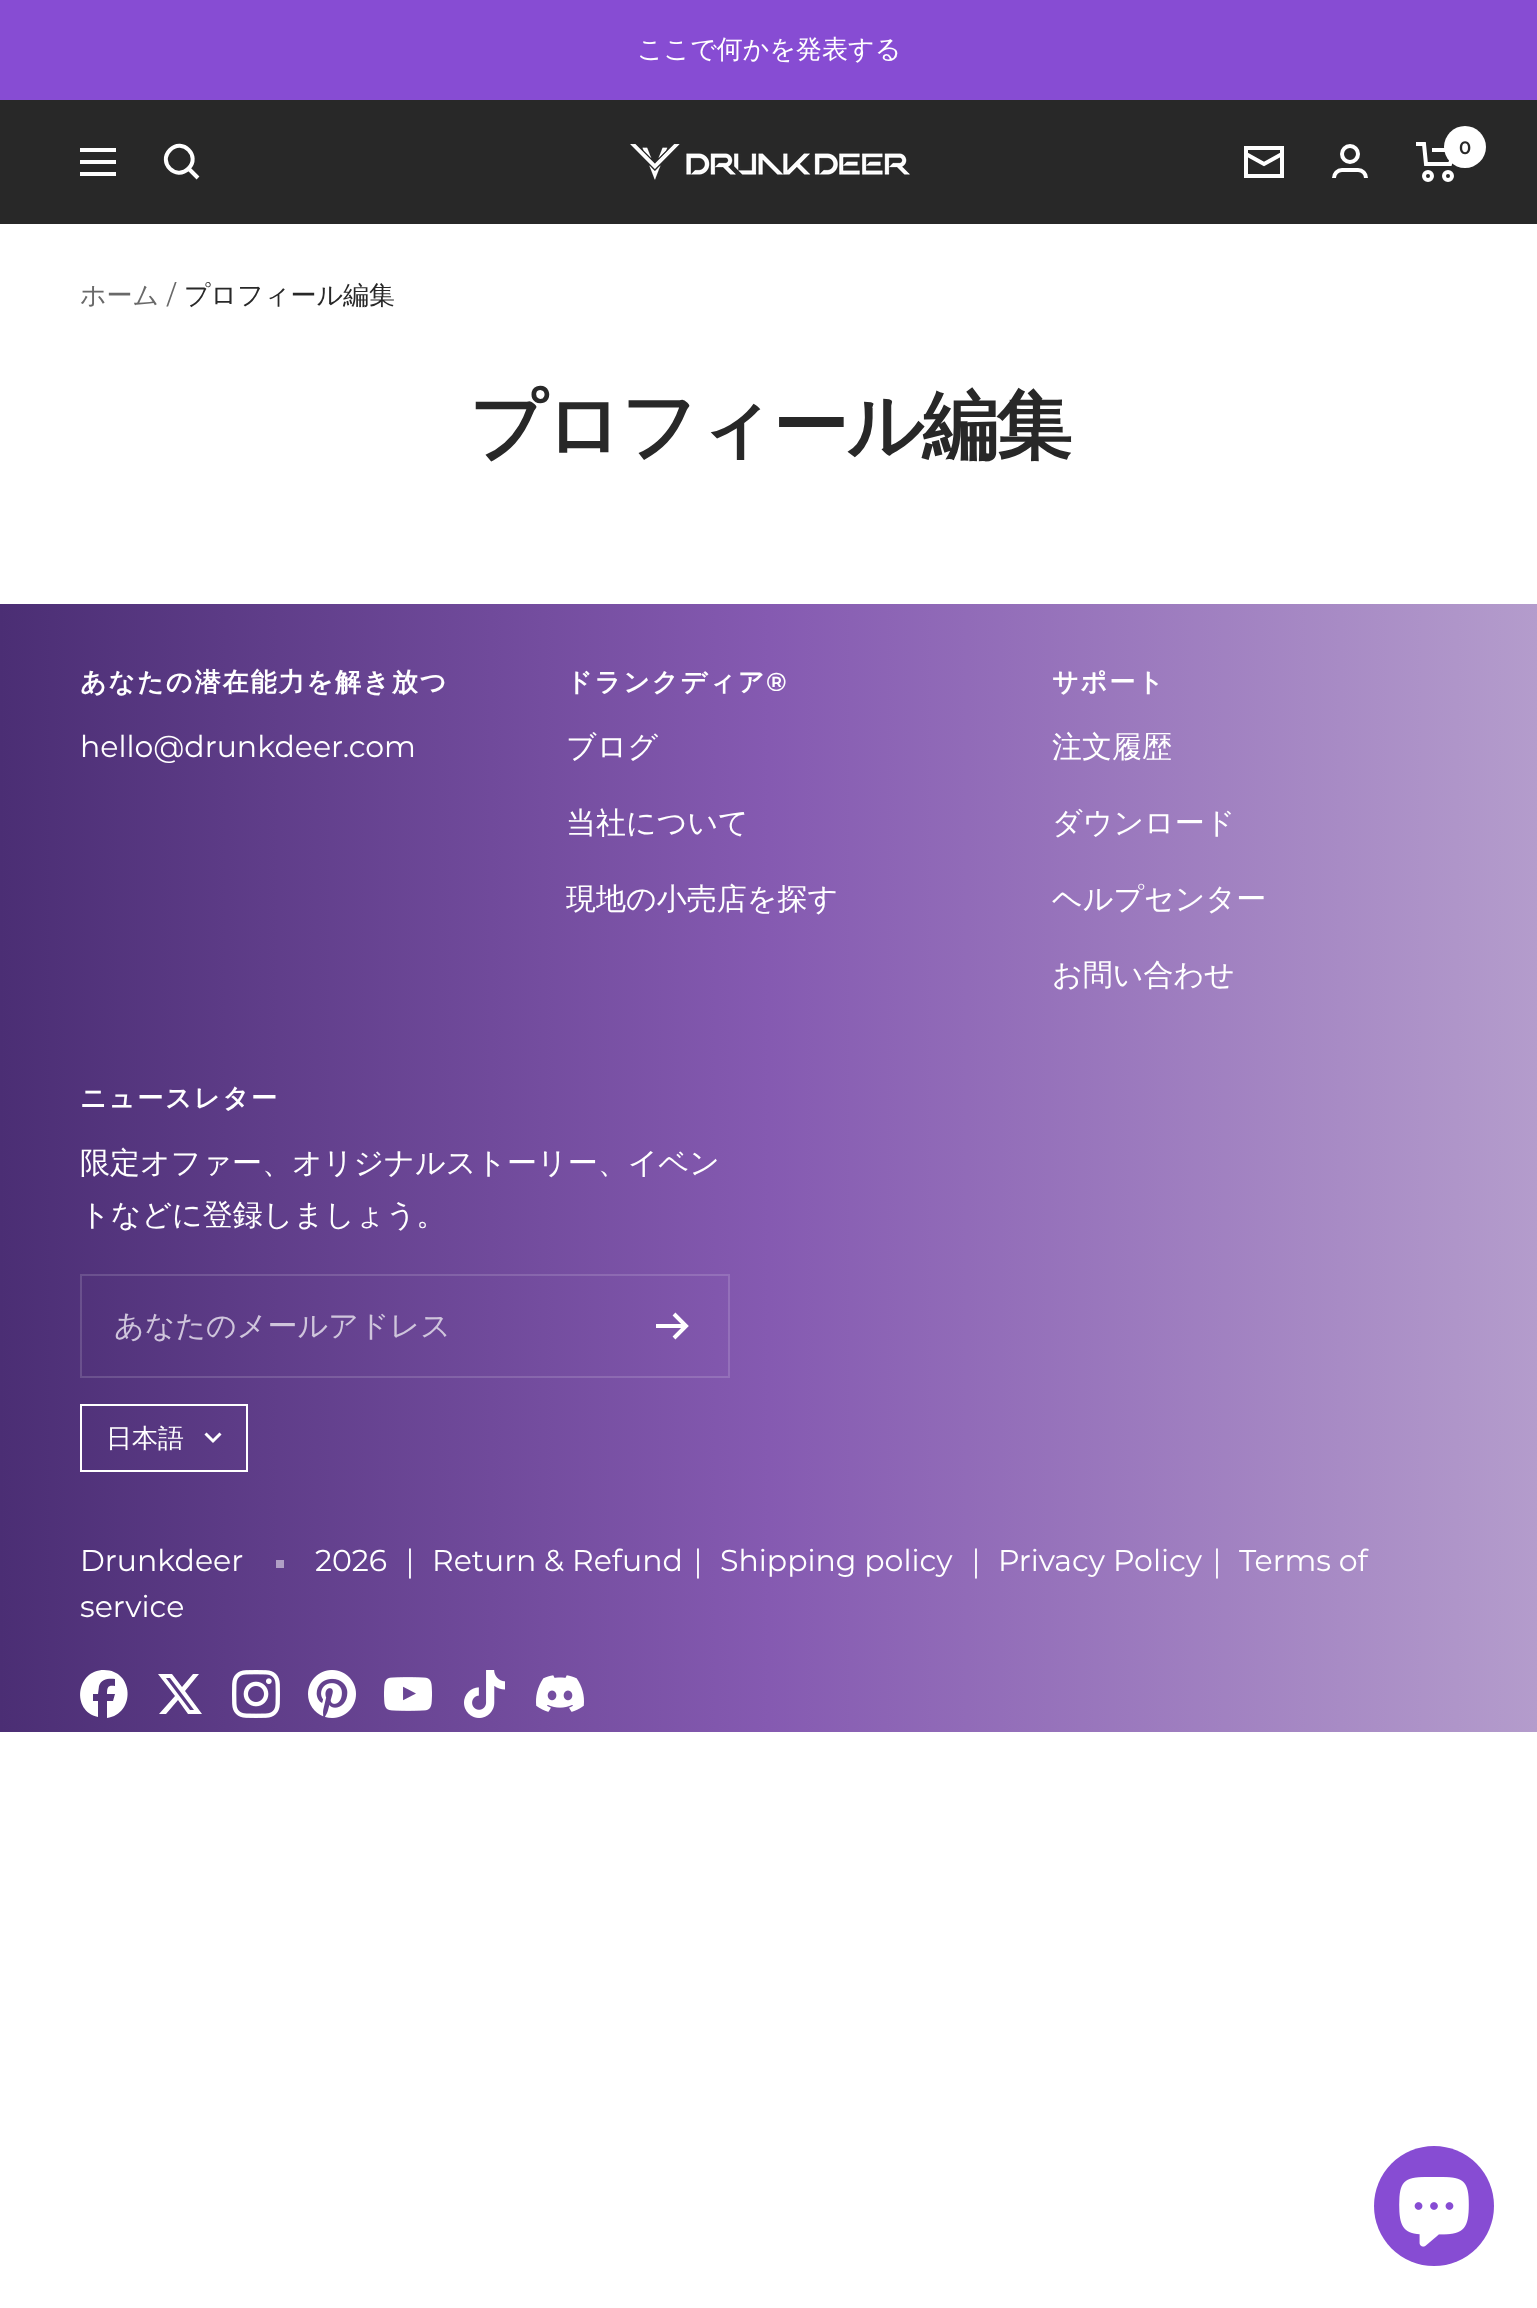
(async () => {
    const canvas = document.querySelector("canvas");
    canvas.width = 1537;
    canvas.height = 2308;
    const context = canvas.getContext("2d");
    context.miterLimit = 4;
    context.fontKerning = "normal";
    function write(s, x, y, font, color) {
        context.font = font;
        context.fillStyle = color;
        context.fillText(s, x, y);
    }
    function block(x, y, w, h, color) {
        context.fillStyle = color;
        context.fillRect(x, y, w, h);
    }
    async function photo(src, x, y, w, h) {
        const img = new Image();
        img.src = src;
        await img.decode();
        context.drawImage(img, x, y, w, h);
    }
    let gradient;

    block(0, 0, 1537, 2308, "rgb(255, 255, 255)");
    block(0, 0, 1537, 100, "rgb(135, 76, 211)");
    write("ここで何かを発表する", 637, 58, "500 26px WenQuanYi Zen Hei", "rgb(255, 255, 255)");
    block(0, 100, 1537, 124, "rgb(40, 40, 40)");
    context.beginPath();
    context.moveTo(80, 150);
    context.lineTo(116, 150);
    context.moveTo(80, 174);
    context.lineTo(116, 174);
    context.closePath();
    context.moveTo(80, 162);
    context.lineTo(116, 162);
    context.closePath();
    context.strokeStyle = "rgb(255, 255, 255)";
    context.lineWidth = 4;
    context.stroke();
    context.beginPath();
    context.moveTo(188.5, 168.5);
    context.bezierCurveTo(201, 156, 182.5, 137.5, 170, 150);
    context.bezierCurveTo(157.5, 162.5, 176, 181, 188.5, 168.5);
    context.closePath();
    context.moveTo(188.5, 168.5);
    context.lineTo(198, 178);
    context.stroke();
    await photo("media/1.png", 630, 144, 280, 36);
    context.beginPath();
    context.moveTo(1282, 154);
    context.lineTo(1264, 164);
    context.lineTo(1246, 154);
    context.moveTo(1246, 148);
    context.lineTo(1282, 148);
    context.lineTo(1282, 176);
    context.lineTo(1246, 176);
    context.closePath();
    context.stroke();
    context.beginPath();
    context.arc(1350, 154, 8, 0, Math.PI * 2);
    context.stroke();
    context.beginPath();
    context.moveTo(1334, 178);
    context.bezierCurveTo(1334, 173.5, 1337.5, 170, 1342, 170);
    context.lineTo(1358, 170);
    context.bezierCurveTo(1362.5, 170, 1366, 173.5, 1366, 178);
    context.stroke();
    context.beginPath();
    context.moveTo(1416, 144);
    context.lineTo(1424, 144);
    context.lineTo(1426, 164);
    context.lineTo(1450, 164);
    context.lineTo(1454, 150);
    context.lineTo(1432, 150);
    context.stroke();
    context.beginPath();
    context.arc(1428, 176, 4, 0, Math.PI * 2);
    context.stroke();
    context.beginPath();
    context.arc(1448, 176, 4, 0, Math.PI * 2);
    context.stroke();
    context.fillStyle = "rgb(255, 255, 255)";
    context.beginPath();
    context.arc(1465, 147, 21, 0, Math.PI * 2);
    context.fill();
    write("0", 1459, 154, "600 18px Montserrat", "rgb(40, 40, 40)");
    write("ホーム", 80, 304, "500 26px WenQuanYi Zen Hei", "rgb(105, 105, 105)");
    write("/", 167, 304, "26px Montserrat", "rgb(105, 105, 105)");
    write("プロフィール編集", 184, 304, "500 26px WenQuanYi Zen Hei", "rgb(40, 40, 40)");
    context.letterSpacing = "-2px";
    write("プロフィール編集", 469, 452, "bold 76px WenQuanYi Zen Hei", "rgb(40, 40, 40)");
    gradient = context.createLinearGradient(0, 1117, 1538, 1117);
    gradient.addColorStop(0, "rgb(75, 46, 116)");
    gradient.addColorStop(0.5, "rgb(133, 90, 177)");
    gradient.addColorStop(1, "rgb(180, 156, 204)");
    context.fillStyle = gradient;
    context.fillRect(0, 604, 1537, 1026);
    context.letterSpacing = "2px";
    write("あなたの潜在能力を解き放つ", 80, 691, "bold 26px WenQuanYi Zen Hei", "rgb(255, 255, 255)");
    context.letterSpacing = "0px";
    write("hello@drunkdeer.com", 80, 757, "30px Montserrat", "rgb(255, 255, 255)");
    context.letterSpacing = "2px";
    write("ドランクディア", 566, 691, "bold 26px WenQuanYi Zen Hei", "rgb(255, 255, 255)");
    write("®", 766, 691, "600 26px Montserrat", "rgb(255, 255, 255)");
    context.letterSpacing = "0px";
    write("ブログ", 566, 757, "500 30px WenQuanYi Zen Hei", "rgb(255, 255, 255)");
    write("当社について", 566, 833, "500 30px WenQuanYi Zen Hei", "rgb(255, 255, 255)");
    write("現地の小売店を探す", 566, 909, "500 30px WenQuanYi Zen Hei", "rgb(255, 255, 255)");
    context.letterSpacing = "2px";
    write("サポート", 1052, 691, "bold 26px WenQuanYi Zen Hei", "rgb(255, 255, 255)");
    context.letterSpacing = "0px";
    write("注文履歴", 1052, 757, "500 30px WenQuanYi Zen Hei", "rgb(255, 255, 255)");
    write("ダウンロード", 1052, 833, "500 30px WenQuanYi Zen Hei", "rgb(255, 255, 255)");
    write("ヘルプセンター", 1052, 909, "500 30px WenQuanYi Zen Hei", "rgb(255, 255, 255)");
    write("お問い合わせ", 1052, 985, "500 30px WenQuanYi Zen Hei", "rgb(255, 255, 255)");
    context.letterSpacing = "2px";
    write("ニュースレター", 80, 1107, "bold 26px WenQuanYi Zen Hei", "rgb(255, 255, 255)");
    context.letterSpacing = "0px";
    write("限定オファー、オリジナルストーリー、イベン", 80, 1173, "500 30px WenQuanYi Zen Hei", "rgb(255, 255, 255)");
    write("トなどに登録しましょう。", 80, 1225, "500 30px WenQuanYi Zen Hei", "rgb(255, 255, 255)");
    context.strokeStyle = "rgba(255, 255, 255, 0.15)";
    context.lineWidth = 2;
    context.strokeRect(81, 1275, 648, 102);
    write("あなたのメールアドレス", 114, 1336, "500 30px WenQuanYi Zen Hei", "rgb(207, 197, 220)");
    context.beginPath();
    context.moveTo(656, 1326);
    context.lineTo(686, 1326);
    context.moveTo(674, 1314);
    context.lineTo(686, 1326);
    context.lineTo(674, 1338);
    context.strokeStyle = "rgb(255, 255, 255)";
    context.lineWidth = 4;
    context.stroke();
    context.lineWidth = 2;
    context.strokeRect(81, 1405, 166, 66);
    write("日本語", 106, 1447, "500 26px WenQuanYi Zen Hei", "rgb(255, 255, 255)");
    context.beginPath();
    context.moveTo(205.5, 1433.5);
    context.lineTo(213, 1441);
    context.lineTo(220.5, 1433.5);
    context.lineWidth = 3;
    context.stroke();
    write("Drunkdeer", 80, 1571, "30px Montserrat", "rgb(255, 255, 255)");
    block(276, 1560, 8, 8, "rgb(176, 159, 197)");
    write("2026", 315, 1571, "30px Montserrat", "rgb(255, 255, 255)");
    write("｜", 395, 1571, "500 30px WenQuanYi Zen Hei", "rgb(255, 255, 255)");
    write("Return & Refund", 432, 1571, "30px Montserrat", "rgb(255, 255, 255)");
    write("｜", 683, 1571, "500 30px WenQuanYi Zen Hei", "rgb(255, 255, 255)");
    write("Shipping policy", 720, 1571, "30px Montserrat", "rgb(255, 255, 255)");
    write("｜", 961, 1571, "500 30px WenQuanYi Zen Hei", "rgb(255, 255, 255)");
    write("Privacy Policy", 998, 1571, "30px Montserrat", "rgb(255, 255, 255)");
    write("｜", 1202, 1571, "500 30px WenQuanYi Zen Hei", "rgb(255, 255, 255)");
    write("Terms of", 1239, 1571, "30px Montserrat", "rgb(255, 255, 255)");
    write("service", 80, 1617, "30px Montserrat", "rgb(255, 255, 255)");
    gradient = context.createLinearGradient(0, 1681, 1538, 1681);
    gradient.addColorStop(0, "rgb(75, 46, 116)");
    gradient.addColorStop(0.5, "rgb(133, 90, 177)");
    gradient.addColorStop(1, "rgb(180, 156, 204)");
    context.fillStyle = gradient;
    context.fillRect(0, 1630, 1537, 102);
    context.fillStyle = "rgb(255, 255, 255)";
    context.beginPath();
    context.moveTo(104, 1670);
    context.bezierCurveTo(76, 1670, 71, 1711, 98, 1717);
    context.lineTo(98, 1701);
    context.lineTo(93, 1701);
    context.lineTo(93, 1694);
    context.lineTo(98, 1694);
    context.lineTo(99, 1686);
    context.bezierCurveTo(101, 1679, 109, 1678, 115, 1679);
    context.lineTo(115, 1686);
    context.bezierCurveTo(108, 1685, 107, 1687, 107, 1694);
    context.lineTo(115, 1694);
    context.lineTo(113, 1701);
    context.lineTo(107, 1701);
    context.lineTo(107, 1718);
    context.bezierCurveTo(136, 1714, 134, 1670, 104, 1670);
    context.closePath();
    context.fill();
    context.beginPath();
    context.moveTo(193, 1674);
    context.lineTo(199, 1674);
    context.lineTo(185, 1691);
    context.lineTo(202, 1714);
    context.lineTo(188, 1714);
    context.lineTo(178, 1700);
    context.lineTo(166, 1714);
    context.lineTo(159, 1714);
    context.lineTo(175, 1696);
    context.lineTo(158, 1674);
    context.lineTo(172, 1674);
    context.lineTo(182, 1687);
    context.closePath();
    context.moveTo(190, 1710);
    context.lineTo(194, 1710);
    context.lineTo(170, 1678);
    context.lineTo(166, 1678);
    context.closePath();
    context.fill();
    await photo("media/2.png", 232, 1670, 48, 48);
    await photo("media/3.png", 308, 1670, 48, 48);
    await photo("media/4.png", 384, 1677, 48, 34);
    await photo("media/5.png", 464, 1670, 41, 48);
    await photo("media/6.png", 536, 1675, 48, 37);
    context.fillStyle = "rgb(135, 76, 211)";
    context.beginPath();
    context.arc(1434, 2206, 60, 0, Math.PI * 2);
    context.fill();
    await photo("media/7.png", 1399, 2177, 70, 70);
})();
